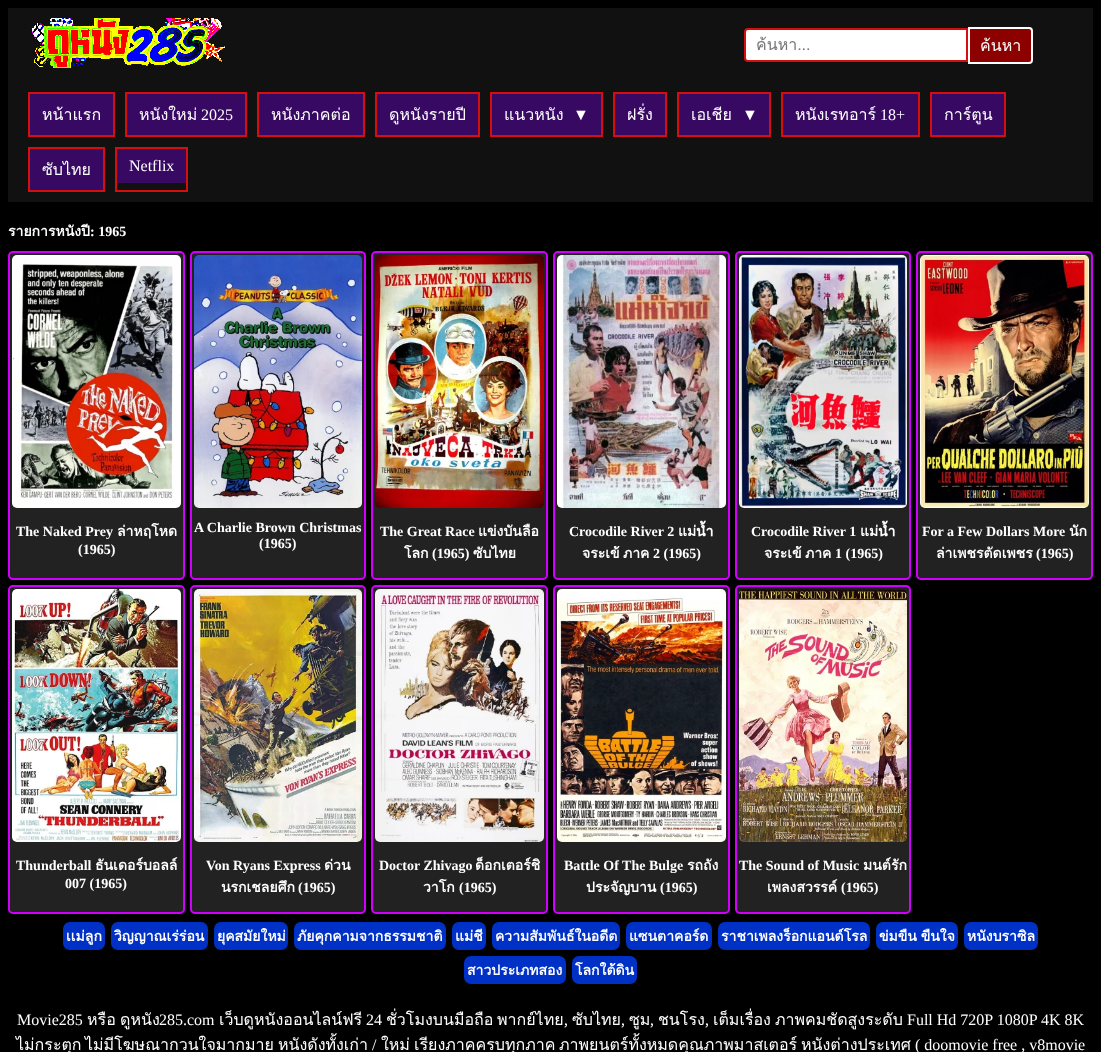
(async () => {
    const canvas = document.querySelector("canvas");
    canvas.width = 1101;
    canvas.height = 1052;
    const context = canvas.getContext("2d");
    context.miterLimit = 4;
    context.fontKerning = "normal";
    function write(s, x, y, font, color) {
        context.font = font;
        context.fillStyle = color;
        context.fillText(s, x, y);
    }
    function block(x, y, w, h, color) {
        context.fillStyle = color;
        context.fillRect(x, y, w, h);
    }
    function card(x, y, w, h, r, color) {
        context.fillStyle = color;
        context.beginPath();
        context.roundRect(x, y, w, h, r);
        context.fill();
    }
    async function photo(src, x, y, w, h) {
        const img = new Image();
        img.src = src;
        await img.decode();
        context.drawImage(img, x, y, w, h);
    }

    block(0, 0, 1101, 1052, "rgb(0, 0, 0)");
    block(8, 8, 1085, 194, "rgb(17, 17, 17)");
    await photo("media/1.png", 31, 18, 194, 50);
    context.fillStyle = "rgb(255, 255, 255)";
    context.beginPath();
    context.roundRect(745, 29, 222, 32, [3, 0, 0, 3]);
    context.fill();
    context.strokeStyle = "rgb(213, 14, 14)";
    context.lineWidth = 2;
    context.stroke();
    context.save();
    context.beginPath();
    context.rect(756, 32, 200, 25);
    context.clip();
    write("ค้นหา...", 756, 50, "16px Loma", "rgb(117, 117, 117)");
    context.restore();
    context.fillStyle = "rgb(141, 0, 0)";
    context.beginPath();
    context.roundRect(969, 28, 63, 35, [0, 3, 3, 0]);
    context.fill();
    context.strokeStyle = "rgb(255, 255, 255)";
    context.stroke();
    write("ค้นหา", 980, 51, "16px Loma", "rgb(255, 255, 255)");
    context.strokeStyle = "rgb(213, 14, 14)";
    context.strokeRect(29, 93, 85, 43);
    block(30, 94, 83, 41, "rgb(55, 9, 99)");
    write("หน้าแรก", 42, 120, "16px Loma", "rgb(255, 255, 255)");
    context.strokeRect(126, 93, 120, 43);
    block(127, 94, 118, 41, "rgb(55, 9, 99)");
    write("หนังใหม่", 139, 120, "16px Loma", "rgb(255, 255, 255)");
    write("2025", 201, 120, "16px Liberation Serif", "rgb(255, 255, 255)");
    context.strokeRect(258, 93, 106, 43);
    block(259, 94, 104, 41, "rgb(55, 9, 99)");
    write("หนังภาคต่อ", 271, 120, "16px Loma", "rgb(255, 255, 255)");
    context.strokeRect(376, 93, 103, 43);
    block(377, 94, 101, 41, "rgb(55, 9, 99)");
    write("ดูหนังรายปี", 389, 120, "16px Loma", "rgb(255, 255, 255)");
    context.strokeRect(491, 93, 111, 43);
    block(492, 94, 109, 41, "rgb(55, 9, 99)");
    write("แนวหนัง", 504, 120, "16px Loma", "rgb(255, 255, 255)");
    write("▼", 573, 120, "16px Liberation Serif", "rgb(255, 255, 255)");
    context.strokeRect(614, 93, 52, 43);
    block(615, 94, 50, 41, "rgb(55, 9, 99)");
    write("ฝรั่ง", 627, 120, "16px Loma", "rgb(255, 255, 255)");
    context.strokeRect(678, 93, 92, 43);
    block(679, 94, 90, 41, "rgb(55, 9, 99)");
    write("เอเชีย", 691, 120, "16px Loma", "rgb(255, 255, 255)");
    write("▼", 742, 120, "16px Liberation Serif", "rgb(255, 255, 255)");
    context.strokeRect(782, 93, 137, 43);
    block(783, 94, 135, 41, "rgb(55, 9, 99)");
    write("หนังเรทอาร์", 795, 120, "16px Loma", "rgb(255, 255, 255)");
    write("18+", 880, 120, "16px Liberation Serif", "rgb(255, 255, 255)");
    context.strokeRect(931, 93, 74, 43);
    block(932, 94, 72, 41, "rgb(55, 9, 99)");
    write("การ์ตูน", 944, 120, "16px Loma", "rgb(255, 255, 255)");
    context.strokeRect(29, 148, 75, 43);
    block(30, 149, 73, 41, "rgb(55, 9, 99)");
    write("ซับไทย", 42, 175, "16px Loma", "rgb(255, 255, 255)");
    context.strokeRect(116, 148, 71, 43);
    block(117, 149, 69, 34, "rgb(55, 9, 99)");
    write("Netflix", 129, 171, "16px Liberation Serif", "rgb(255, 255, 255)");
    write("รายการหนังปี", 8, 236, "bold 14px Loma", "rgb(255, 255, 255)");
    write(": 1965", 90, 236, "bold 14px Liberation Serif", "rgb(255, 255, 255)");
    context.fillStyle = "rgb(34, 34, 34)";
    context.beginPath();
    context.roundRect(9, 252, 175, 327, 4);
    context.fill();
    context.strokeStyle = "rgb(208, 0, 250)";
    context.stroke();
    await photo("media/2.png", 12, 255, 169, 253);
    write("The Naked Prey", 16, 536, "bold 14px Liberation Serif", "rgb(255, 255, 255)");
    write("ล่าหฤโหด", 117, 536, "bold 14px Loma", "rgb(255, 255, 255)");
    write("(1965)", 78, 554, "bold 14px Liberation Serif", "rgb(255, 255, 255)");
    context.fillStyle = "rgb(34, 34, 34)";
    context.beginPath();
    context.roundRect(191, 252, 174, 327, 4);
    context.fill();
    context.stroke();
    await photo("media/3.png", 194, 255, 168, 253);
    write("A Charlie Brown Christmas", 194, 532, "bold 14px Liberation Serif", "rgb(255, 255, 255)");
    write("(1965)", 259, 548, "bold 14px Liberation Serif", "rgb(255, 255, 255)");
    context.fillStyle = "rgb(34, 34, 34)";
    context.beginPath();
    context.roundRect(372, 252, 175, 327, 4);
    context.fill();
    context.stroke();
    await photo("media/4.png", 375, 255, 169, 253);
    write("The Great Race", 380, 536, "bold 14px Liberation Serif", "rgb(255, 255, 255)");
    write("แข่งบันลือ", 478, 536, "bold 14px Loma", "rgb(255, 255, 255)");
    write("โลก", 404, 558, "bold 14px Loma", "rgb(255, 255, 255)");
    write("(1965)", 432, 558, "bold 14px Liberation Serif", "rgb(255, 255, 255)");
    write("ซับไทย", 473, 558, "bold 14px Loma", "rgb(255, 255, 255)");
    context.fillStyle = "rgb(34, 34, 34)";
    context.beginPath();
    context.roundRect(554, 252, 175, 327, 4);
    context.fill();
    context.stroke();
    await photo("media/5.png", 557, 255, 169, 253);
    write("Crocodile River 2", 569, 536, "bold 14px Liberation Serif", "rgb(255, 255, 255)");
    write("แม่น้ำ", 678, 536, "bold 14px Loma", "rgb(255, 255, 255)");
    write("จระเข้", 582, 558, "bold 14px Loma", "rgb(255, 255, 255)");
    write("ภาค", 623, 558, "bold 14px Loma", "rgb(255, 255, 255)");
    write("2 (1965)", 653, 558, "bold 14px Liberation Serif", "rgb(255, 255, 255)");
    context.fillStyle = "rgb(34, 34, 34)";
    context.beginPath();
    context.roundRect(736, 252, 174, 327, 4);
    context.fill();
    context.stroke();
    await photo("media/6.png", 739, 255, 168, 253);
    write("Crocodile River 1", 751, 536, "bold 14px Liberation Serif", "rgb(255, 255, 255)");
    write("แม่น้ำ", 860, 536, "bold 14px Loma", "rgb(255, 255, 255)");
    write("จระเข้", 764, 558, "bold 14px Loma", "rgb(255, 255, 255)");
    write("ภาค", 805, 558, "bold 14px Loma", "rgb(255, 255, 255)");
    write("1 (1965)", 835, 558, "bold 14px Liberation Serif", "rgb(255, 255, 255)");
    context.fillStyle = "rgb(34, 34, 34)";
    context.beginPath();
    context.roundRect(917, 252, 175, 327, 4);
    context.fill();
    context.stroke();
    await photo("media/7.png", 920, 255, 169, 253);
    write("For a Few Dollars More", 922, 536, "bold 14px Liberation Serif", "rgb(255, 255, 255)");
    write("นัก", 1069, 536, "bold 14px Loma", "rgb(255, 255, 255)");
    write("ล่าเพชรตัดเพชร", 936, 558, "bold 14px Loma", "rgb(255, 255, 255)");
    write("(1965)", 1036, 558, "bold 14px Liberation Serif", "rgb(255, 255, 255)");
    context.fillStyle = "rgb(34, 34, 34)";
    context.beginPath();
    context.roundRect(9, 586, 175, 327, 4);
    context.fill();
    context.stroke();
    await photo("media/8.png", 12, 589, 169, 253);
    write("Thunderball", 16, 870, "bold 14px Liberation Serif", "rgb(255, 255, 255)");
    write("ธันเดอร์บอลล์", 95, 870, "bold 14px Loma", "rgb(255, 255, 255)");
    write("007 (1965)", 65, 888, "bold 14px Liberation Serif", "rgb(255, 255, 255)");
    context.fillStyle = "rgb(34, 34, 34)";
    context.beginPath();
    context.roundRect(191, 586, 174, 327, 4);
    context.fill();
    context.stroke();
    await photo("media/9.png", 194, 589, 168, 253);
    write("Von Ryans Express", 206, 870, "bold 14px Liberation Serif", "rgb(255, 255, 255)");
    write("ด่วน", 324, 870, "bold 14px Loma", "rgb(255, 255, 255)");
    write("นรกเชลยศึก", 221, 892, "bold 14px Loma", "rgb(255, 255, 255)");
    write("(1965)", 298, 892, "bold 14px Liberation Serif", "rgb(255, 255, 255)");
    context.fillStyle = "rgb(34, 34, 34)";
    context.beginPath();
    context.roundRect(372, 586, 175, 327, 4);
    context.fill();
    context.stroke();
    await photo("media/10.png", 375, 589, 169, 253);
    write("Doctor Zhivago", 379, 870, "bold 14px Liberation Serif", "rgb(255, 255, 255)");
    write("ด็อกเตอร์ชิ", 475, 870, "bold 14px Loma", "rgb(255, 255, 255)");
    write("วาโก", 423, 892, "bold 14px Loma", "rgb(255, 255, 255)");
    write("(1965)", 459, 892, "bold 14px Liberation Serif", "rgb(255, 255, 255)");
    context.fillStyle = "rgb(34, 34, 34)";
    context.beginPath();
    context.roundRect(554, 586, 175, 327, 4);
    context.fill();
    context.stroke();
    await photo("media/11.png", 557, 589, 169, 253);
    write("Battle Of The Bulge", 564, 870, "bold 14px Liberation Serif", "rgb(255, 255, 255)");
    write("รถถัง", 687, 870, "bold 14px Loma", "rgb(255, 255, 255)");
    write("ประจัญบาน", 586, 892, "bold 14px Loma", "rgb(255, 255, 255)");
    write("(1965)", 660, 892, "bold 14px Liberation Serif", "rgb(255, 255, 255)");
    context.fillStyle = "rgb(34, 34, 34)";
    context.beginPath();
    context.roundRect(736, 586, 174, 327, 4);
    context.fill();
    context.stroke();
    await photo("media/12.png", 739, 589, 168, 253);
    write("The Sound of Music", 739, 870, "bold 14px Liberation Serif", "rgb(255, 255, 255)");
    write("มนต์รัก", 863, 870, "bold 14px Loma", "rgb(255, 255, 255)");
    write("เพลงสวรรค์", 767, 892, "bold 14px Loma", "rgb(255, 255, 255)");
    write("(1965)", 841, 892, "bold 14px Liberation Serif", "rgb(255, 255, 255)");
    card(63, 922, 42, 28, 7, "rgb(0, 49, 198)");
    write("เเม่ลูก", 66, 941, "bold 14px Loma", "rgb(255, 255, 255)");
    card(111, 922, 97, 28, 7, "rgb(0, 49, 198)");
    write("วิญญาณเร่ร่อน", 114, 941, "bold 14px Loma", "rgb(255, 255, 255)");
    card(214, 922, 74, 28, 7, "rgb(0, 49, 198)");
    write("ยุคสมัยใหม่", 217, 941, "bold 14px Loma", "rgb(255, 255, 255)");
    card(294, 922, 152, 28, 7, "rgb(0, 49, 198)");
    write("ภัยคุกคามจากธรรมชาติ", 297, 941, "bold 14px Loma", "rgb(255, 255, 255)");
    card(452, 922, 34, 28, 7, "rgb(0, 49, 198)");
    write("แม่ชี", 455, 941, "bold 14px Loma", "rgb(255, 255, 255)");
    card(492, 922, 128, 28, 7, "rgb(0, 49, 198)");
    write("ความสัมพันธ์ในอดีต", 495, 941, "bold 14px Loma", "rgb(255, 255, 255)");
    card(626, 922, 86, 28, 7, "rgb(0, 49, 198)");
    write("แซนตาคอร์ด", 629, 941, "bold 14px Loma", "rgb(255, 255, 255)");
    card(718, 922, 152, 28, 7, "rgb(0, 49, 198)");
    write("ราชาเพลงร็อกแอนด์โรล", 721, 941, "bold 14px Loma", "rgb(255, 255, 255)");
    card(876, 922, 82, 28, 7, "rgb(0, 49, 198)");
    context.wordSpacing = "-1px";
    write("ข่มขืน ขืนใจ", 879, 941, "bold 14px Loma", "rgb(255, 255, 255)");
    card(964, 922, 74, 28, 7, "rgb(0, 49, 198)");
    context.wordSpacing = "0px";
    write("หนังบราซิล", 967, 941, "bold 14px Loma", "rgb(255, 255, 255)");
    card(464, 956, 102, 28, 7, "rgb(0, 49, 198)");
    write("สาวประเภทสอง", 467, 975, "bold 14px Loma", "rgb(255, 255, 255)");
    card(572, 956, 65, 28, 7, "rgb(0, 49, 198)");
    write("โลกใต้ดิน", 575, 975, "bold 14px Loma", "rgb(255, 255, 255)");
    write("Movie285", 17, 1025, "16px Liberation Serif", "rgb(255, 255, 255)");
    write("หรือ", 87, 1025, "16px Loma", "rgb(255, 255, 255)");
    write("ดูหนัง", 120, 1025, "16px Loma", "rgb(255, 255, 255)");
    write("285.com", 159, 1025, "16px Liberation Serif", "rgb(255, 255, 255)");
    write("เว็บดูหนังออนไลน์ฟรี", 219, 1025, "16px Loma", "rgb(255, 255, 255)");
    write("24", 366, 1025, "16px Liberation Serif", "rgb(255, 255, 255)");
    write("ชั่วโมงบนมือถือ", 386, 1025, "16px Loma", "rgb(255, 255, 255)");
    write("พากย์ไทย", 497, 1025, "16px Loma", "rgb(255, 255, 255)");
    write(",", 564, 1025, "16px Liberation Serif", "rgb(255, 255, 255)");
    write("ซับไทย", 572, 1025, "16px Loma", "rgb(255, 255, 255)");
    write(",", 621, 1025, "16px Liberation Serif", "rgb(255, 255, 255)");
    write("ซูม", 629, 1025, "16px Loma", "rgb(255, 255, 255)");
    write(",", 650, 1025, "16px Liberation Serif", "rgb(255, 255, 255)");
    write("ชนโรง", 658, 1025, "16px Loma", "rgb(255, 255, 255)");
    write(",", 705, 1025, "16px Liberation Serif", "rgb(255, 255, 255)");
    write("เต็มเรื่อง", 713, 1025, "16px Loma", "rgb(255, 255, 255)");
    write("ภาพคมชัดสูงระดับ", 775, 1025, "16px Loma", "rgb(255, 255, 255)");
    write("Full Hd 720P 1080P 4K 8K", 907, 1025, "16px Liberation Serif", "rgb(255, 255, 255)");
    write("ไม่กระตุก", 16, 1050, "16px Loma", "rgb(255, 255, 255)");
    write("ไม่มีโฆษณากวนใจมากมาย", 85, 1050, "16px Loma", "rgb(255, 255, 255)");
    write("หนังดังทั้งเก่า", 278, 1050, "16px Loma", "rgb(255, 255, 255)");
    write("/", 372, 1050, "16px Liberation Serif", "rgb(255, 255, 255)");
    write("ใหม่", 381, 1050, "16px Loma", "rgb(255, 255, 255)");
    write("เรียงภาคครบทุกภาค", 414, 1050, "16px Loma", "rgb(255, 255, 255)");
    write("ภาพยนตร์ทั้งหมดคุณภาพมาสเตอร์", 559, 1050, "16px Loma", "rgb(255, 255, 255)");
    write("หนังต่างประเทศ", 801, 1050, "16px Loma", "rgb(255, 255, 255)");
    write("( doomovie free , v8movie", 915, 1050, "16px Liberation Serif", "rgb(255, 255, 255)");
})();
